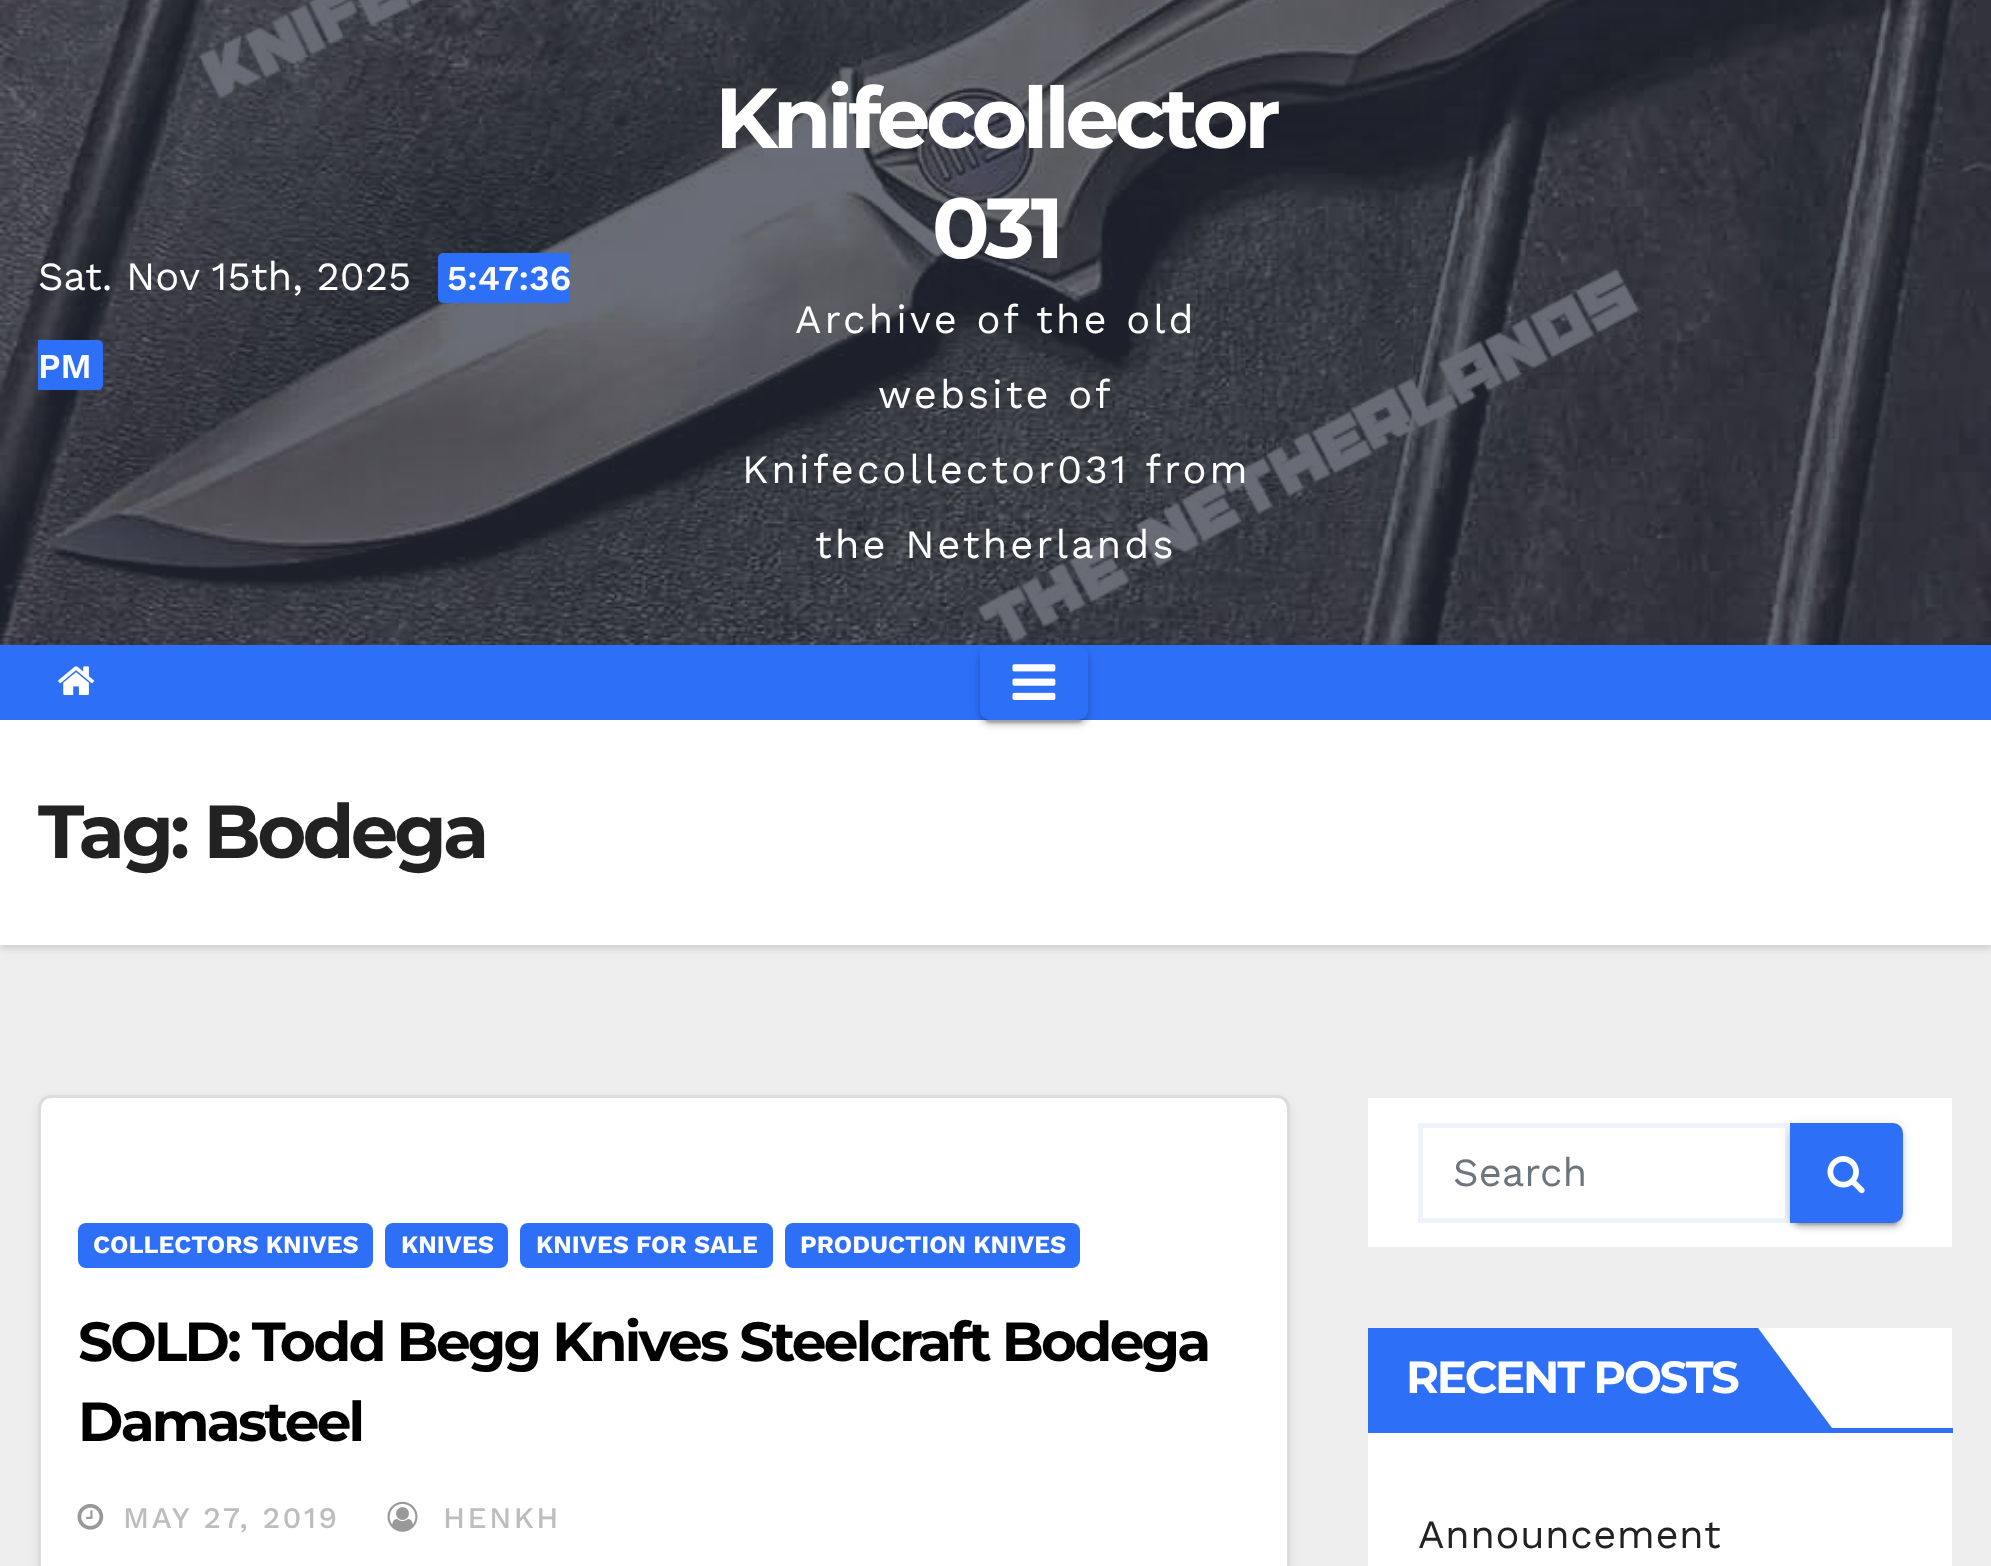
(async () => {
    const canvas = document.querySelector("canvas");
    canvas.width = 1991;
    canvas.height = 1566;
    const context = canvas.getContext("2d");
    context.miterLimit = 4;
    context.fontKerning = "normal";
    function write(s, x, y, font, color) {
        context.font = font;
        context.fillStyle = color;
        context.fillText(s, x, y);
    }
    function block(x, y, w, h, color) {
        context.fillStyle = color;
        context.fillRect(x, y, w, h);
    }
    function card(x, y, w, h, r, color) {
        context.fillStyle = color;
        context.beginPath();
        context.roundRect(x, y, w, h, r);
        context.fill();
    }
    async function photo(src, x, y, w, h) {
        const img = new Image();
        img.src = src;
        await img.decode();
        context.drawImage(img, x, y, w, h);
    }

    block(0, 0, 1991, 1566, "rgb(238, 238, 238)");
    await photo("media/1.png", 0, 0, 1991, 645);
    write("Sat. Nov 15th, 2025", 38, 290, "40px Work Sans", "rgb(255, 255, 255)");
    context.fillStyle = "rgb(45, 111, 247)";
    context.beginPath();
    context.roundRect(438, 253, 132, 50, [5, 0, 0, 5]);
    context.fill();
    write("5:47:36", 447, 290, "600 35px Work Sans", "rgb(255, 255, 255)");
    context.fillStyle = "rgb(45, 111, 247)";
    context.beginPath();
    context.roundRect(38, 340, 65, 50, [0, 5, 5, 0]);
    context.fill();
    write("PM", 38, 378, "600 35px Work Sans", "rgb(255, 255, 255)");
    context.letterSpacing = "-4.25px";
    write("Knifecollector", 715, 148, "bold 85px Montserrat", "rgb(255, 255, 255)");
    write("031", 932, 258, "bold 85px Montserrat", "rgb(255, 255, 255)");
    context.letterSpacing = "3px";
    write("Archive of the old", 795, 333, "40px Work Sans", "rgb(255, 255, 255)");
    write("website of", 878, 408, "40px Work Sans", "rgb(255, 255, 255)");
    write("Knifecollector031 from", 742, 483, "40px Work Sans", "rgb(255, 255, 255)");
    write("the Netherlands", 815, 558, "40px Work Sans", "rgb(255, 255, 255)");
    context.fillStyle = "rgba(0, 0, 0, 0.15)";
    context.filter = "blur(4px)";
    context.beginPath();
    context.rect(0, 723, 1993, 225);
    context.fill();
    context.filter = "none";
    block(0, 645, 1991, 75, "rgb(45, 111, 247)");
    await photo("media/2.png", 58, 666, 36, 29);
    block(0, 720, 1991, 225, "rgb(255, 255, 255)");
    context.save();
    context.beginPath();
    context.moveTo(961, 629);
    context.lineTo(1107, 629);
    context.lineTo(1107, 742);
    context.lineTo(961, 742);
    context.closePath();
    context.moveTo(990, 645);
    context.lineTo(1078, 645);
    context.bezierCurveTo(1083.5, 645, 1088, 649.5, 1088, 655);
    context.lineTo(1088, 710);
    context.bezierCurveTo(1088, 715.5, 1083.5, 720, 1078, 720);
    context.lineTo(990, 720);
    context.bezierCurveTo(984.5, 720, 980, 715.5, 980, 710);
    context.lineTo(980, 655);
    context.bezierCurveTo(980, 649.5, 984.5, 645, 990, 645);
    context.closePath();
    context.clip("evenodd");
    context.fillStyle = "rgba(0, 0, 0, 0.12)";
    context.filter = "blur(6px)";
    context.beginPath();
    context.roundRect(980, 648, 108, 75, 10);
    context.fill();
    context.filter = "none";
    context.restore();
    context.save();
    context.beginPath();
    context.moveTo(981, 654);
    context.lineTo(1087, 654);
    context.lineTo(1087, 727);
    context.lineTo(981, 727);
    context.closePath();
    context.moveTo(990, 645);
    context.lineTo(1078, 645);
    context.bezierCurveTo(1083.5, 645, 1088, 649.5, 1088, 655);
    context.lineTo(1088, 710);
    context.bezierCurveTo(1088, 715.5, 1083.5, 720, 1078, 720);
    context.lineTo(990, 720);
    context.bezierCurveTo(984.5, 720, 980, 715.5, 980, 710);
    context.lineTo(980, 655);
    context.bezierCurveTo(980, 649.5, 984.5, 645, 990, 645);
    context.closePath();
    context.clip("evenodd");
    context.fillStyle = "rgba(0, 0, 0, 0.2)";
    context.filter = "blur(1px)";
    context.beginPath();
    context.roundRect(985, 658, 98, 65, 5);
    context.fill();
    context.filter = "none";
    context.restore();
    context.save();
    context.beginPath();
    context.moveTo(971, 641);
    context.lineTo(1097, 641);
    context.lineTo(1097, 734);
    context.lineTo(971, 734);
    context.closePath();
    context.moveTo(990, 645);
    context.lineTo(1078, 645);
    context.bezierCurveTo(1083.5, 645, 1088, 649.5, 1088, 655);
    context.lineTo(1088, 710);
    context.bezierCurveTo(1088, 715.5, 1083.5, 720, 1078, 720);
    context.lineTo(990, 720);
    context.bezierCurveTo(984.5, 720, 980, 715.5, 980, 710);
    context.lineTo(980, 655);
    context.bezierCurveTo(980, 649.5, 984.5, 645, 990, 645);
    context.closePath();
    context.clip("evenodd");
    context.fillStyle = "rgba(0, 0, 0, 0.14)";
    context.filter = "blur(2.5px)";
    context.beginPath();
    context.roundRect(980, 650, 108, 75, 10);
    context.fill();
    context.filter = "none";
    context.restore();
    await photo("media/3.png", 1012, 664, 44, 36);
    context.letterSpacing = "-3.75px";
    write("Tag: Bodega", 38, 858, "bold 75px Montserrat", "rgb(34, 34, 34)");
    context.fillStyle = "rgba(0, 0, 0, 0.08)";
    context.filter = "blur(5px)";
    context.beginPath();
    context.roundRect(38, 1100, 1252, 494, 13);
    context.fill();
    context.filter = "none";
    context.fillStyle = "rgb(255, 255, 255)";
    context.beginPath();
    context.roundRect(39.5, 1096.5, 1249, 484, 11.5);
    context.fill();
    context.strokeStyle = "rgb(221, 220, 220)";
    context.lineWidth = 3;
    context.stroke();
    card(78, 1223, 295, 45, 8, "rgb(45, 111, 247)");
    context.letterSpacing = "0px";
    write("COLLECTORS KNIVES", 93, 1253, "bold 25px Work Sans", "rgb(255, 255, 255)");
    card(385, 1223, 123, 45, 8, "rgb(45, 111, 247)");
    write("KNIVES", 401, 1253, "bold 25px Work Sans", "rgb(255, 255, 255)");
    card(520, 1223, 253, 45, 8, "rgb(45, 111, 247)");
    write("KNIVES FOR SALE", 536, 1253, "bold 25px Work Sans", "rgb(255, 255, 255)");
    card(785, 1223, 295, 45, 8, "rgb(45, 111, 247)");
    write("PRODUCTION KNIVES", 800, 1253, "bold 25px Work Sans", "rgb(255, 255, 255)");
    context.letterSpacing = "-2.75px";
    write("SOLD: Todd Begg Knives Steelcraft Bodega", 78, 1361, "bold 55px Montserrat", "rgb(0, 0, 0)");
    write("Damasteel", 78, 1441, "bold 55px Montserrat", "rgb(0, 0, 0)");
    await photo("media/4.png", 77, 1503, 27, 27);
    context.letterSpacing = "2.5px";
    write("MAY 27, 2019", 123, 1528, "500 30px Work Sans", "rgb(189, 189, 189)");
    await photo("media/5.png", 387, 1501, 31, 31);
    write("HENKH", 443, 1528, "500 30px Work Sans", "rgb(189, 189, 189)");
    block(1368, 1098, 584, 149, "rgb(255, 255, 255)");
    context.strokeStyle = "rgb(238, 243, 251)";
    context.lineWidth = 5;
    context.strokeRect(1420.5, 1125.5, 367, 95);
    context.letterSpacing = "0px";
    write("Search", 1453, 1186, "40px Work Sans", "rgb(108, 117, 125)");
    context.fillStyle = "rgba(0, 0, 0, 0.12)";
    context.filter = "blur(6px)";
    context.beginPath();
    context.roundRect(1790, 1125, 113, 100, 10);
    context.fill();
    context.filter = "none";
    context.fillStyle = "rgba(0, 0, 0, 0.2)";
    context.filter = "blur(1px)";
    context.beginPath();
    context.roundRect(1795, 1135, 103, 90, 5);
    context.fill();
    context.filter = "none";
    context.fillStyle = "rgba(0, 0, 0, 0.14)";
    context.filter = "blur(2.5px)";
    context.beginPath();
    context.roundRect(1790, 1128, 113, 100, 10);
    context.fill();
    context.filter = "none";
    context.fillStyle = "rgb(45, 111, 247)";
    context.beginPath();
    context.roundRect(1790, 1123, 113, 100, [0, 10, 10, 0]);
    context.fill();
    await photo("media/6.png", 1827, 1156, 38, 38);
    block(1368, 1328, 584, 238, "rgb(255, 255, 255)");
    block(1368, 1428, 585, 5, "rgb(45, 111, 247)");
    block(1368, 1328, 390, 100, "rgb(45, 111, 247)");
    context.letterSpacing = "-2.25px";
    write("RECENT POSTS", 1406, 1393, "bold 45px Montserrat", "rgb(255, 255, 255)");
    context.fillStyle = "rgb(45, 111, 247)";
    context.beginPath();
    context.moveTo(1758, 1428);
    context.lineTo(1758, 1328);
    context.lineTo(1832, 1428);
    context.closePath();
    context.fill();
    context.letterSpacing = "0.5px";
    write("Announcement", 1418, 1548, "40px Work Sans", "rgb(34, 34, 34)");
})();
